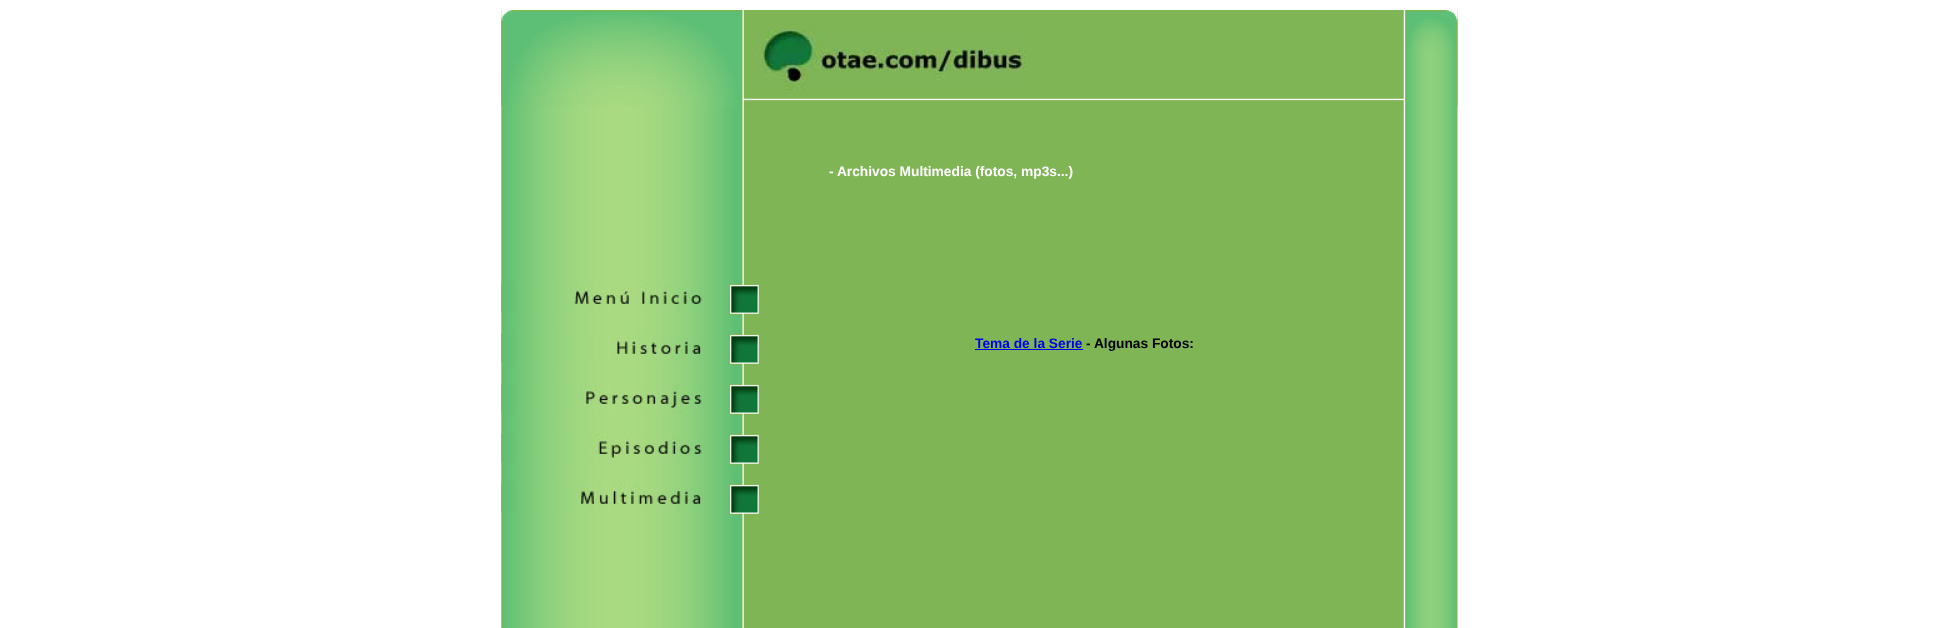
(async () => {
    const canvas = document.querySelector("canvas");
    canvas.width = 1958;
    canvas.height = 628;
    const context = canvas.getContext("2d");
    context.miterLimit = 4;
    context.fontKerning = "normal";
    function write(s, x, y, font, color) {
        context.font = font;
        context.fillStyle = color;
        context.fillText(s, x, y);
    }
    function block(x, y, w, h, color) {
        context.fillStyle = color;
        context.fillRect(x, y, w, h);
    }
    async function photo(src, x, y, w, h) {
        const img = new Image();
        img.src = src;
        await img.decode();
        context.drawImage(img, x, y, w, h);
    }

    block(0, 0, 1958, 628, "rgb(255, 255, 255)");
    await photo("media/1.png", 501, 10, 957, 618);
    await photo("media/2.png", 501, 10, 241, 88);
    await photo("media/3.png", 756, 29, 269, 61);
    await photo("media/4.png", 1406, 10, 52, 88);
    await photo("media/5.png", 501, 97, 957, 10);
    write("- Archivos Multimedia (fotos, mp3s...)", 829, 176, "bold 13.75px Liberation Sans", "rgb(255, 255, 255)");
    await photo("media/6.png", 501, 283, 201, 30);
    await photo("media/7.png", 728, 283, 31, 32);
    await photo("media/8.png", 501, 333, 201, 30);
    await photo("media/9.png", 728, 333, 31, 32);
    write("Tema de la Serie", 975, 348, "bold 13.75px Liberation Sans", "rgb(0, 0, 238)");
    block(975, 349, 108, 1, "rgb(0, 0, 238)");
    write("- Algunas Fotos:", 1086, 348, "bold 13.75px Liberation Sans", "rgb(0, 0, 0)");
    await photo("media/10.png", 501, 383, 201, 30);
    await photo("media/9.png", 728, 383, 31, 32);
    await photo("media/11.png", 501, 433, 201, 30);
    await photo("media/9.png", 728, 433, 31, 32);
    await photo("media/12.png", 501, 483, 201, 30);
    await photo("media/9.png", 728, 483, 31, 32);
})();
